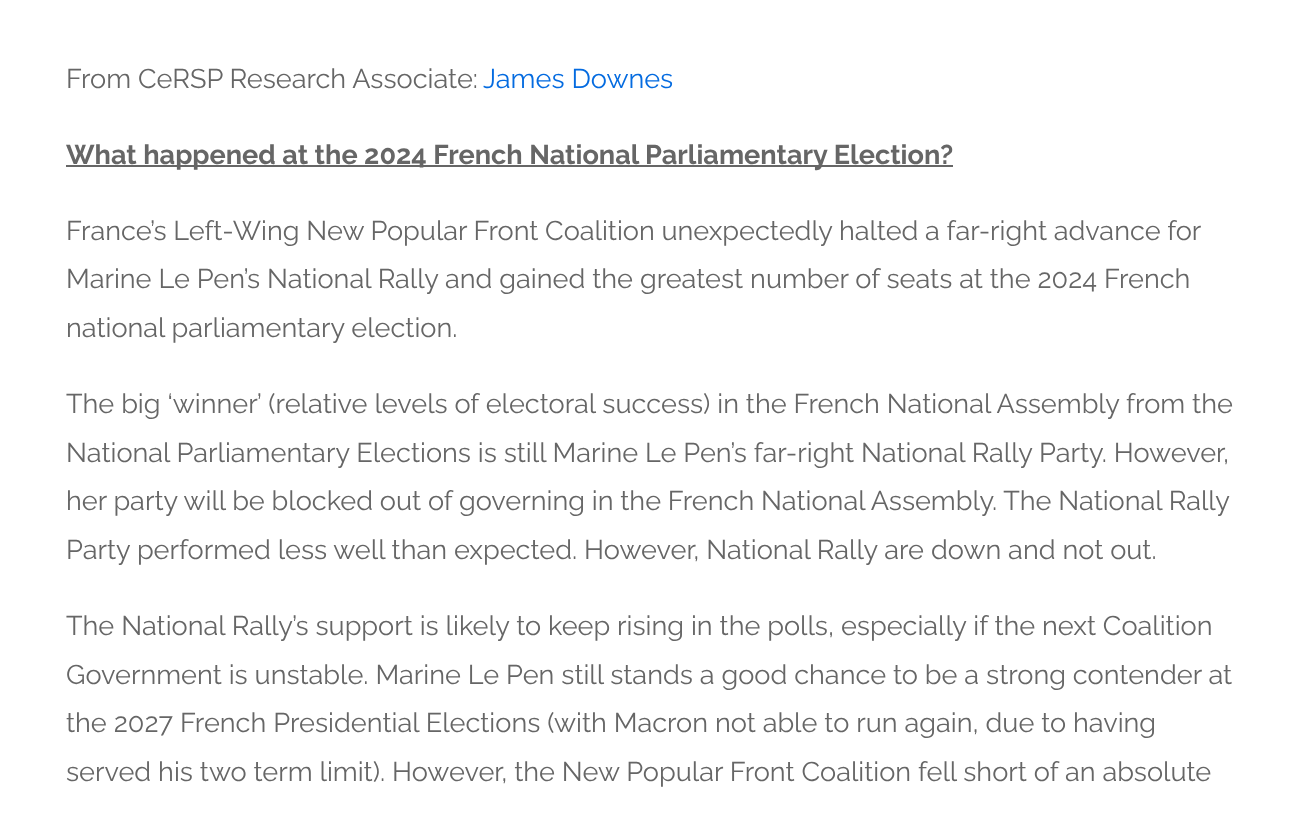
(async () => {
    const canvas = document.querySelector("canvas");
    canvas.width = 1309;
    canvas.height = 818;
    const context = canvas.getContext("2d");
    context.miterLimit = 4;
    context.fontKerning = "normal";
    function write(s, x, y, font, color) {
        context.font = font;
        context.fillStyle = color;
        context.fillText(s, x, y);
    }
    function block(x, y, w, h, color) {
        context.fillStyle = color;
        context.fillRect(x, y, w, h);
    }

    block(0, 0, 1309, 818, "rgb(255, 255, 255)");
    write("From CeRSP Research Associate:", 66, 88, "27.1px Raleway", "rgb(102, 102, 102)");
    write("James Downes", 483, 88, "27.1px Raleway", "rgb(4, 107, 224)");
    block(66, 165, 887, 2, "rgb(102, 102, 102)");
    write("What happened at the 2024 French National Parliamentary Election?", 66, 164, "bold 27.1px Raleway", "rgb(102, 102, 102)");
    context.wordSpacing = "-0.25px";
    write("France’s Left-Wing New Popular Front Coalition unexpectedly halted a far-right advance for", 66, 240, "27.1px Raleway", "rgb(102, 102, 102)");
    context.wordSpacing = "0px";
    write("Marine Le Pen’s National Rally and gained the greatest number of seats at the 2024 French", 66, 288, "27.1px Raleway", "rgb(102, 102, 102)");
    write("national parliamentary election.", 66, 337, "27.1px Raleway", "rgb(102, 102, 102)");
    write("The big ‘winner’ (relative levels of electoral success) in the French National Assembly from the", 66, 413, "27.1px Raleway", "rgb(102, 102, 102)");
    write("National Parliamentary Elections is still Marine Le Pen’s far-right National Rally Party. However,", 66, 462, "27.1px Raleway", "rgb(102, 102, 102)");
    context.wordSpacing = "-0.1px";
    write("her party will be blocked out of governing in the French National Assembly. The National Rally", 66, 510, "27.1px Raleway", "rgb(102, 102, 102)");
    context.wordSpacing = "0px";
    write("Party performed less well than expected. However, National Rally are down and not out.", 66, 559, "27.1px Raleway", "rgb(102, 102, 102)");
    write("The National Rally’s support is likely to keep rising in the polls, especially if the next Coalition", 66, 635, "27.1px Raleway", "rgb(102, 102, 102)");
    write("Government is unstable. Marine Le Pen still stands a good chance to be a strong contender at", 66, 684, "27.1px Raleway", "rgb(102, 102, 102)");
    write("the 2027 French Presidential Elections (with Macron not able to run again, due to having", 66, 732, "27.1px Raleway", "rgb(102, 102, 102)");
    write("served his two term limit). However, the New Popular Front Coalition fell short of an absolute", 66, 781, "27.1px Raleway", "rgb(102, 102, 102)");
})();
